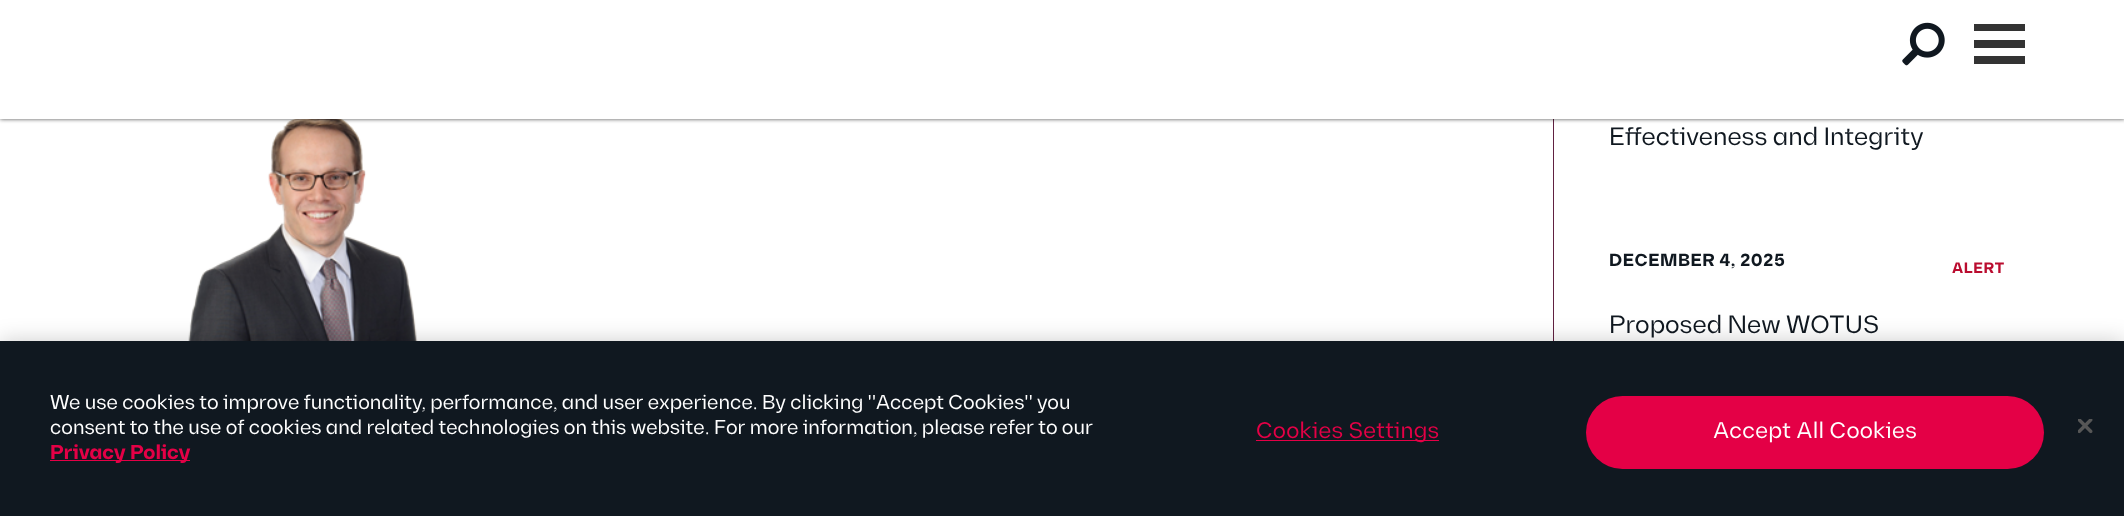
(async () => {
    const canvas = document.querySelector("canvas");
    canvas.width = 2124;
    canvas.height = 516;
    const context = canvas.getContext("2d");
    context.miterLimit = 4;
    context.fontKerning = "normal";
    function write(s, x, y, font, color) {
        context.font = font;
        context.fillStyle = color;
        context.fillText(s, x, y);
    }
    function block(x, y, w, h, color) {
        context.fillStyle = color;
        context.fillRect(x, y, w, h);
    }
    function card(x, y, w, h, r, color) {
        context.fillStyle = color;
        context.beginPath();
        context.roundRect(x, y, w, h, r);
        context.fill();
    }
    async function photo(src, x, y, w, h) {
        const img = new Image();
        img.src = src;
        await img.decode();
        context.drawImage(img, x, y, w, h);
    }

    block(0, 0, 2124, 516, "rgb(255, 255, 255)");
    block(1553, 119, 1, 222, "rgb(97, 33, 65)");
    await photo("media/2.png", 188, 119, 230, 222);
    context.fillStyle = "rgba(0, 0, 0, 0.7)";
    context.filter = "blur(2px)";
    context.beginPath();
    context.rect(0, 0, 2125, 119);
    context.fill();
    context.filter = "none";
    block(0, 0, 2124, 119, "rgb(255, 255, 255)");
    await photo("media/1.png", 1902, 22, 43, 44);
    block(1974, 40, 51, 8, "rgb(51, 51, 51)");
    block(1974, 24, 51, 7, "rgb(51, 51, 51)");
    block(1974, 56, 51, 8, "rgb(51, 51, 51)");
    write("Effectiveness and Integrity", 1609, 145, "25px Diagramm", "rgb(16, 24, 32)");
    context.letterSpacing = "0.5px";
    write("DECEMBER 4, 2025", 1609, 266, "bold 17.5px Diagramm", "rgb(16, 24, 32)");
    write("ALERT", 1952, 273, "bold 15px Diagramm", "rgb(186, 12, 47)");
    context.letterSpacing = "0px";
    write("Proposed New WOTUS", 1609, 333, "25px Diagramm", "rgb(16, 24, 32)");
    context.fillStyle = "rgba(0, 0, 0, 0.2)";
    context.filter = "blur(11px)";
    context.beginPath();
    context.rect(0, 341, 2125, 175);
    context.fill();
    context.filter = "none";
    block(0, 341, 2124, 175, "rgb(16, 24, 32)");
    write("We use cookies to improve functionality, performance, and user experience. By clicking \"Accept Cookies\" you", 50, 409, "20px Diagramm", "rgb(255, 255, 255)");
    write("consent to the use of cookies and related technologies on this website. For more information, please refer to our", 50, 434, "20px Diagramm", "rgb(255, 255, 255)");
    block(50, 460, 140, 1, "rgb(228, 0, 70)");
    write("Privacy Policy", 50, 459, "bold 20px Diagramm", "rgb(228, 0, 70)");
    block(1256, 440, 183, 1, "rgb(228, 0, 70)");
    context.letterSpacing = "0.25px";
    write("Cookies Settings", 1256, 438, "22.5px Diagramm", "rgb(228, 0, 70)");
    card(1586, 396, 458, 73, 36.5, "rgb(228, 0, 70)");
    write("Accept All Cookies", 1713, 438, "22.5px Diagramm", "rgb(255, 255, 255)");
    await photo("media/3.png", 2078, 419, 15, 15);
})();
